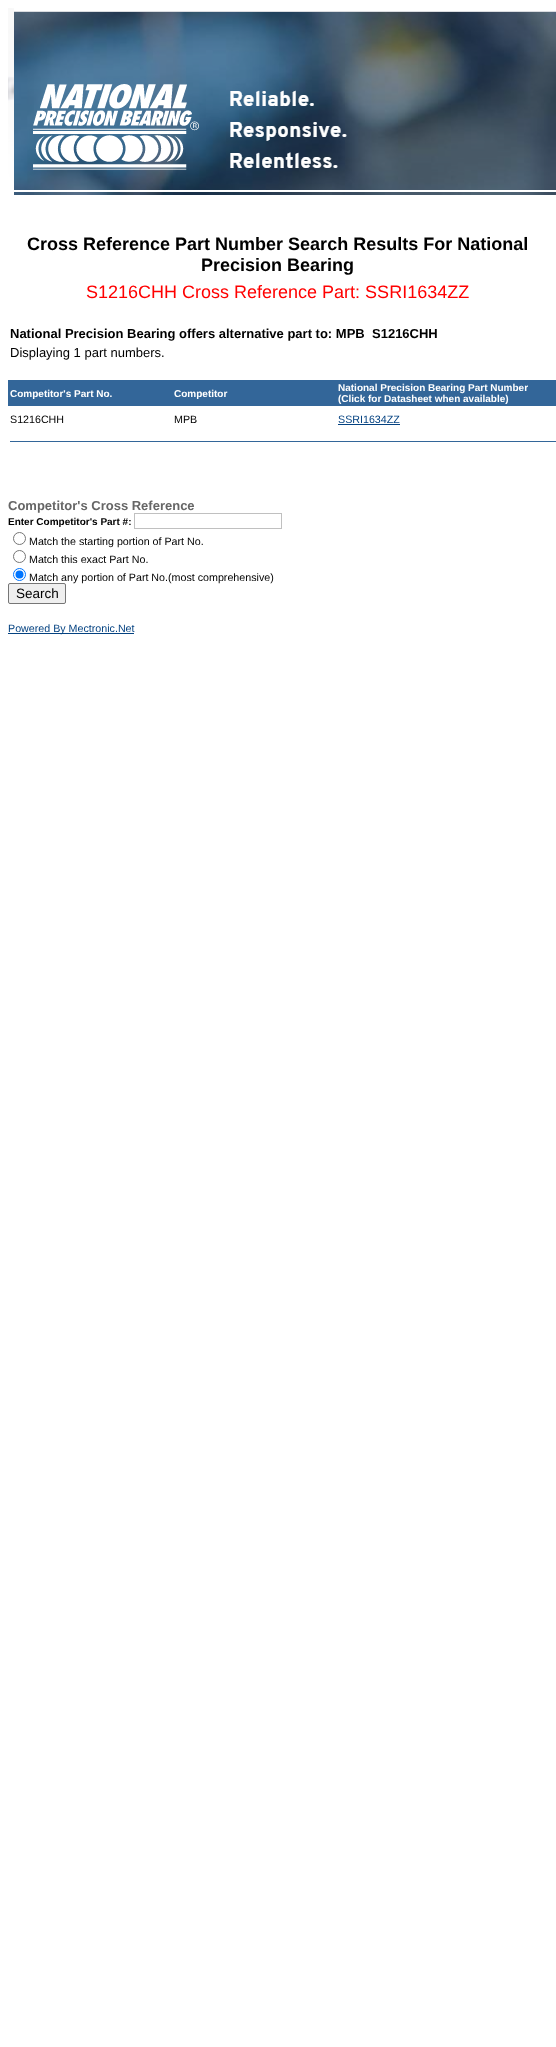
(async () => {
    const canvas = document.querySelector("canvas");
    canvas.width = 556;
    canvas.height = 2047;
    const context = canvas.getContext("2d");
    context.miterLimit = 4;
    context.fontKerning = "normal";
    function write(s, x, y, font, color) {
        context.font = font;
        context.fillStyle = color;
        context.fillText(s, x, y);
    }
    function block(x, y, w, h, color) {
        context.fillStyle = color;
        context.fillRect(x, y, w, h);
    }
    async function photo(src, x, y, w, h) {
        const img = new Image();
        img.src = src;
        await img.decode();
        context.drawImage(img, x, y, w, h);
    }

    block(0, 0, 556, 2047, "rgb(255, 255, 255)");
    await photo("media/1.png", 8, 8, 548, 187);
    write("Cross Reference Part Number Search Results For National", 27, 250, "bold 18px Liberation Sans", "rgb(0, 0, 0)");
    write("Precision Bearing", 201, 271, "bold 18px Liberation Sans", "rgb(0, 0, 0)");
    write("S1216CHH Cross Reference Part: SSRI1634ZZ", 86, 298, "18px Liberation Sans", "rgb(255, 0, 0)");
    write("National Precision Bearing offers alternative part to: MPB", 10, 338, "bold 13px Liberation Sans", "rgb(0, 0, 0)");
    write("S1216CHH", 372, 338, "bold 13px Liberation Sans", "rgb(0, 0, 0)");
    write("Displaying 1 part numbers.", 10, 357, "13px Liberation Sans", "rgb(0, 0, 0)");
    block(8, 380, 548, 26, "rgb(51, 102, 153)");
    write("Competitor's Part No.", 10, 397, "bold 10px Liberation Sans", "rgb(255, 255, 255)");
    write("Competitor", 174, 397, "bold 10px Liberation Sans", "rgb(255, 255, 255)");
    write("National Precision Bearing Part Number", 338, 391, "bold 10px Liberation Sans", "rgb(255, 255, 255)");
    write("(Click for Datasheet when available)", 338, 402, "bold 10px Liberation Sans", "rgb(255, 255, 255)");
    write("S1216CHH", 10, 423, "10.7px Liberation Sans", "rgb(0, 0, 0)");
    write("MPB", 174, 423, "10.7px Liberation Sans", "rgb(0, 0, 0)");
    write("SSRI1634ZZ", 338, 423, "10.7px Liberation Sans", "rgb(4, 66, 129)");
    block(338, 424, 62, 1, "rgb(4, 66, 129)");
    block(10, 441, 546, 1, "rgb(51, 102, 153)");
    write("Competitor's Cross Reference", 8, 510, "bold 13px Liberation Sans", "rgb(102, 102, 102)");
    write("Enter Competitor's Part #:", 8, 525, "bold 10px Liberation Sans", "rgb(0, 0, 0)");
    context.strokeStyle = "rgb(192, 192, 192)";
    context.strokeRect(134.5, 513.5, 147, 15);
    context.beginPath();
    context.arc(19.5, 538.5, 6, 0, Math.PI * 2);
    context.strokeStyle = "rgb(118, 118, 118)";
    context.stroke();
    write("Match the starting portion of Part No.", 29, 545, "10.7px Liberation Sans", "rgb(0, 0, 0)");
    context.beginPath();
    context.arc(19.5, 556.5, 6, 0, Math.PI * 2);
    context.stroke();
    write("Match this exact Part No.", 29, 563, "10.7px Liberation Sans", "rgb(0, 0, 0)");
    context.beginPath();
    context.arc(19.5, 574.5, 6, 0, Math.PI * 2);
    context.strokeStyle = "rgb(0, 117, 255)";
    context.stroke();
    context.fillStyle = "rgb(0, 117, 255)";
    context.beginPath();
    context.arc(19.5, 574.5, 4, 0, Math.PI * 2);
    context.fill();
    write("Match any portion of Part No.(most comprehensive)", 29, 581, "10.7px Liberation Sans", "rgb(0, 0, 0)");
    context.fillStyle = "rgb(239, 239, 239)";
    context.beginPath();
    context.roundRect(8.5, 583.5, 57, 20, 1.5);
    context.fill();
    context.strokeStyle = "rgb(118, 118, 118)";
    context.stroke();
    write("Search", 16, 598, "13.5px Liberation Sans", "rgb(0, 0, 0)");
    block(8, 633, 126, 1, "rgb(4, 66, 129)");
    write("Powered By Mectronic.Net", 8, 632, "10.7px Liberation Sans", "rgb(4, 66, 129)");
})();
